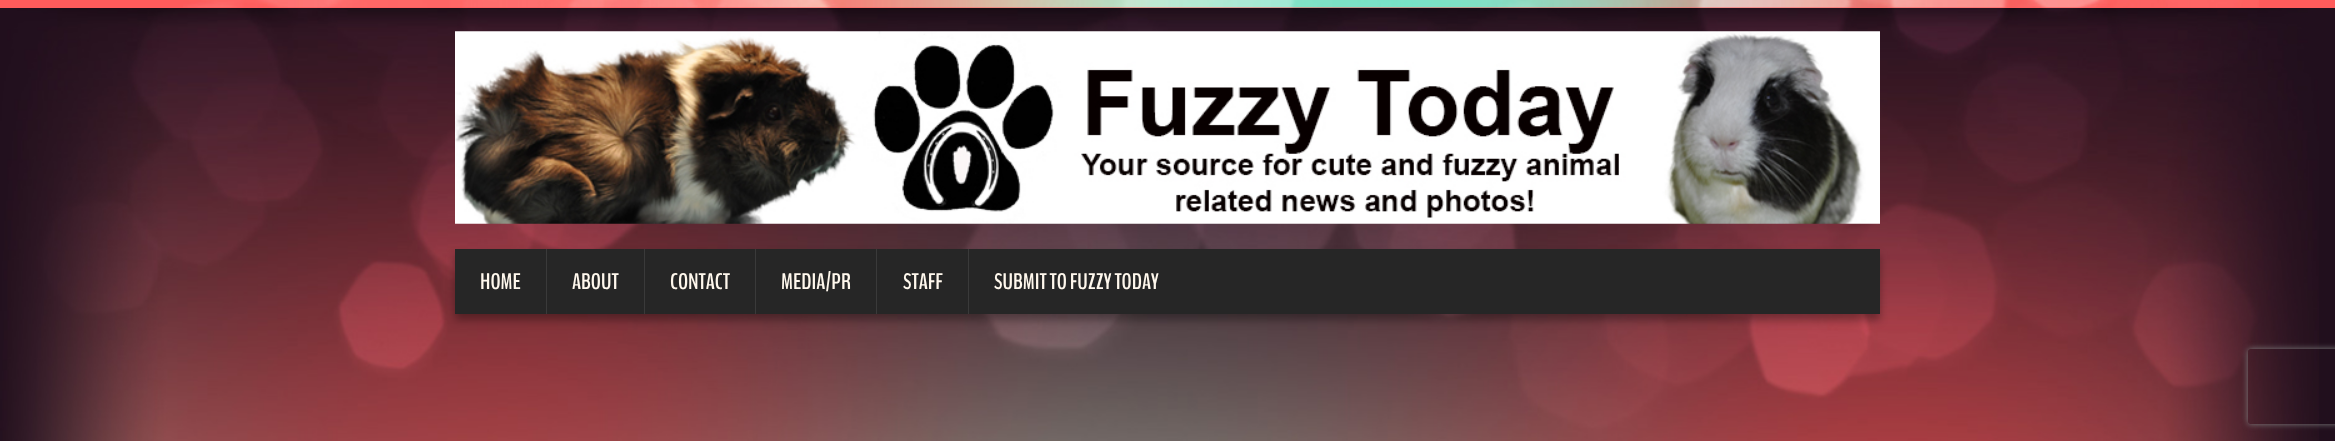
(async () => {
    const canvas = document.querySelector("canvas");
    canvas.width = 2335;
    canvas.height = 441;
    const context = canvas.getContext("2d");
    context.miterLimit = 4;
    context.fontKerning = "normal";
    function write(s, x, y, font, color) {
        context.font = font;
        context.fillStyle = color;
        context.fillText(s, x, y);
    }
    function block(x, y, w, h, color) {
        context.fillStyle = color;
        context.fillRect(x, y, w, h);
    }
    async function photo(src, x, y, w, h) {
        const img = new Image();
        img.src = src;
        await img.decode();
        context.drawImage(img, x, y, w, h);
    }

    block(0, 0, 2335, 441, "rgb(33, 15, 29)");
    await photo("media/1.png", 0, 8, 2319, 433);
    block(0, 0, 2335, 8, "rgb(255, 91, 91)");
    await photo("media/2.png", 183, 0, 2076, 8);
    await photo("media/3.png", 455, 31, 1425, 193);
    context.fillStyle = "rgba(0, 0, 0, 0.33)";
    context.filter = "blur(4.5px)";
    context.beginPath();
    context.rect(455, 255, 1425, 65);
    context.fill();
    context.filter = "none";
    block(455, 249, 1425, 65, "rgb(38, 38, 38)");
    write("HOME", 480, 289, "bold 22.5px BenchNine", "rgb(255, 248, 237)");
    block(546, 249, 1, 65, "rgb(58, 58, 58)");
    write("ABOUT", 572, 289, "bold 22.5px BenchNine", "rgb(255, 248, 237)");
    block(644, 249, 1, 65, "rgb(58, 58, 58)");
    write("CONTACT", 670, 289, "bold 22.5px BenchNine", "rgb(255, 248, 237)");
    block(755, 249, 1, 65, "rgb(58, 58, 58)");
    write("MEDIA/PR", 781, 289, "bold 22.5px BenchNine", "rgb(255, 248, 237)");
    block(876, 249, 1, 65, "rgb(58, 58, 58)");
    write("STAFF", 903, 289, "bold 22.5px BenchNine", "rgb(255, 248, 237)");
    block(968, 249, 1, 65, "rgb(58, 58, 58)");
    write("SUBMIT TO FUZZY TODAY", 994, 289, "bold 22.5px BenchNine", "rgb(255, 248, 237)");
    context.save();
    context.beginPath();
    context.moveTo(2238, 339);
    context.lineTo(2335, 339);
    context.lineTo(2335, 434);
    context.lineTo(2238, 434);
    context.closePath();
    context.moveTo(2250.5, 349);
    context.lineTo(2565.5, 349);
    context.bezierCurveTo(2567, 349, 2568, 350, 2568, 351.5);
    context.lineTo(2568, 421.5);
    context.bezierCurveTo(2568, 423, 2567, 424, 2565.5, 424);
    context.lineTo(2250.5, 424);
    context.bezierCurveTo(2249, 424, 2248, 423, 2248, 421.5);
    context.lineTo(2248, 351.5);
    context.bezierCurveTo(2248, 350, 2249, 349, 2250.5, 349);
    context.closePath();
    context.clip("evenodd");
    context.fillStyle = "rgb(128, 128, 128)";
    context.filter = "blur(3px)";
    context.beginPath();
    context.roundRect(2248, 349, 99, 75, 2.5);
    context.fill();
    context.filter = "none";
    context.restore();
})();
